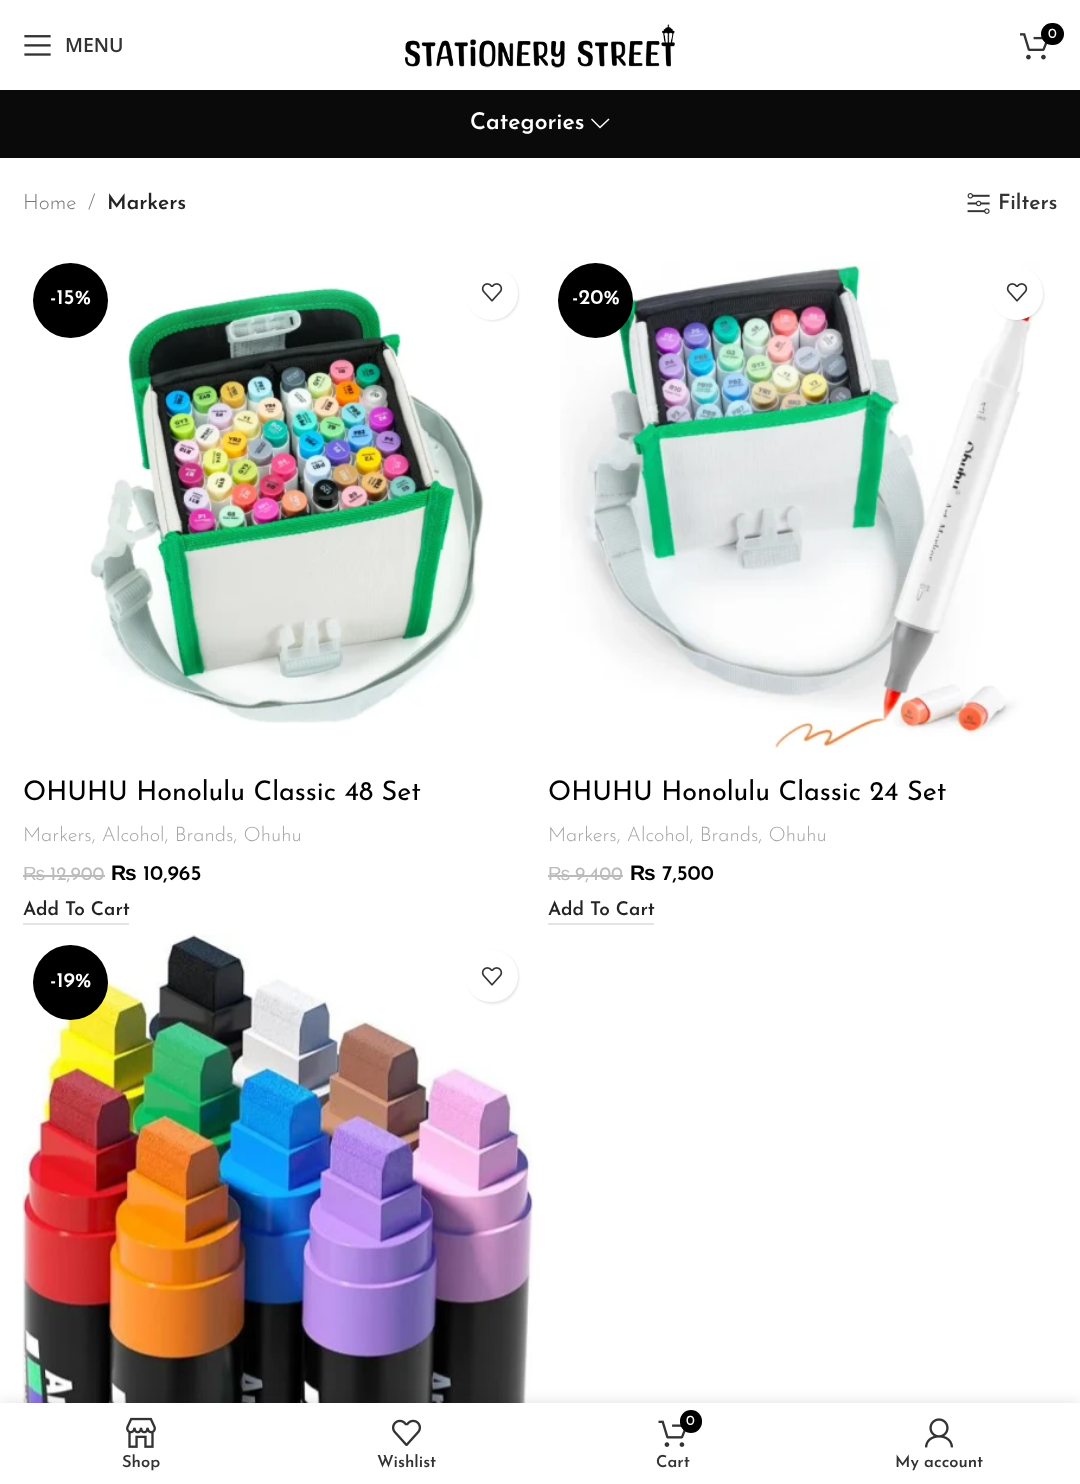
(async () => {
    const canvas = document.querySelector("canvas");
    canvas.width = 1080;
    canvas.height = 1484;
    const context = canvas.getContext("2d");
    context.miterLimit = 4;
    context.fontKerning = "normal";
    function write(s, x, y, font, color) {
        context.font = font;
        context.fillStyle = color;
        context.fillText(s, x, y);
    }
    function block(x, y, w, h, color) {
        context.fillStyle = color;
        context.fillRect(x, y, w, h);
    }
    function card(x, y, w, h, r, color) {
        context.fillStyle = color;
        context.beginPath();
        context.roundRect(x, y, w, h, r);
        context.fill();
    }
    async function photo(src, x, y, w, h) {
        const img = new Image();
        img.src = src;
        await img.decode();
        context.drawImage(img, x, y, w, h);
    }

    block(0, 0, 1080, 1484, "rgb(255, 255, 255)");
    await photo("media/1.png", 405, 24, 270, 44);
    await photo("media/2.png", 1020, 33, 28, 27);
    card(1041, 23, 23, 22, 11, "rgb(0, 0, 0)");
    write("0", 1048, 38, "14px Josefin Sans", "rgb(255, 255, 255)");
    await photo("media/3.png", 24, 35, 27, 21);
    write("MENU", 65, 52, "600 19.5px Open Sans", "rgb(51, 51, 51)");
    block(0, 90, 1080, 68, "rgb(10, 10, 10)");
    write("Categories", 470, 129, "600 23px Josefin Sans", "rgb(255, 255, 255)");
    context.beginPath();
    context.moveTo(608.5, 118.5);
    context.lineTo(600, 126.5);
    context.lineTo(592, 118.5);
    context.lineTo(591, 119.5);
    context.lineTo(600, 128.5);
    context.lineTo(609.5, 119.5);
    context.closePath();
    context.fill();
    write("Home", 23, 209, "300 21px Josefin Sans", "rgb(118, 118, 118)");
    write("/", 88, 209, "300 21px Josefin Sans", "rgb(118, 118, 118)");
    write("Markers", 107, 209, "600 21px Josefin Sans", "rgb(36, 36, 36)");
    await photo("media/4.png", 967, 193, 23, 21);
    write("Filters", 998, 209, "600 21px Josefin Sans", "rgb(51, 51, 51)");
    await photo("media/5.png", 90, 286, 394, 437);
    context.fillStyle = "rgb(0, 0, 0)";
    context.beginPath();
    context.arc(70.5, 300.5, 37.5, 0, Math.PI * 2);
    context.fill();
    write("-15%", 50, 304, "600 21px Josefin Sans", "rgb(255, 255, 255)");
    context.fillStyle = "rgba(0, 0, 0, 0.1)";
    context.filter = "blur(1px)";
    context.beginPath();
    context.roundRect(467, 269, 52, 52, 26);
    context.fill();
    context.filter = "none";
    context.fillStyle = "rgb(255, 255, 255)";
    context.beginPath();
    context.arc(491.5, 293.5, 26.5, 0, Math.PI * 2);
    context.fill();
    await photo("media/6.png", 481, 283, 22, 19);
    write("OHUHU Honolulu Classic 48 Set", 23, 800, "27px Josefin Sans", "rgb(0, 0, 0)");
    write("Markers, Alcohol, Brands, Ohuhu", 23, 841, "300 20px Josefin Sans", "rgb(165, 165, 165)");
    write("₨", 23, 880, "19px Liberation Sans", "rgb(187, 187, 187)");
    block(23, 875, 22, 2, "rgb(187, 187, 187)");
    write("12,900", 50, 880, "19px Josefin Sans", "rgb(187, 187, 187)");
    block(45, 875, 60, 2, "rgb(187, 187, 187)");
    write("₨", 111, 880, "bold 21px Liberation Sans", "rgb(0, 0, 0)");
    write("10,965", 143, 880, "600 21px Josefin Sans", "rgb(0, 0, 0)");
    block(23, 923, 106, 2, "rgb(228, 228, 228)");
    write("Add To Cart", 23, 915, "600 19px Josefin Sans", "rgb(36, 36, 36)");
    await photo("media/7.png", 560, 262, 481, 493);
    context.fillStyle = "rgb(0, 0, 0)";
    context.beginPath();
    context.arc(595.5, 300.5, 37.5, 0, Math.PI * 2);
    context.fill();
    write("-20%", 572, 304, "600 21px Josefin Sans", "rgb(255, 255, 255)");
    context.fillStyle = "rgba(0, 0, 0, 0.1)";
    context.filter = "blur(1px)";
    context.beginPath();
    context.roundRect(992, 269, 52, 52, 26);
    context.fill();
    context.filter = "none";
    context.fillStyle = "rgb(255, 255, 255)";
    context.beginPath();
    context.arc(1016.5, 293.5, 26.5, 0, Math.PI * 2);
    context.fill();
    await photo("media/6.png", 1006, 283, 22, 19);
    write("OHUHU Honolulu Classic 24 Set", 548, 800, "27px Josefin Sans", "rgb(0, 0, 0)");
    write("Markers, Alcohol, Brands, Ohuhu", 548, 841, "300 20px Josefin Sans", "rgb(165, 165, 165)");
    write("₨", 548, 880, "19px Liberation Sans", "rgb(187, 187, 187)");
    block(548, 875, 22, 2, "rgb(187, 187, 187)");
    write("9,400", 575, 880, "19px Josefin Sans", "rgb(187, 187, 187)");
    block(570, 875, 53, 2, "rgb(187, 187, 187)");
    write("₨", 630, 880, "bold 21px Liberation Sans", "rgb(0, 0, 0)");
    write("7,500", 662, 880, "600 21px Josefin Sans", "rgb(0, 0, 0)");
    block(548, 923, 106, 2, "rgb(228, 228, 228)");
    write("Add To Cart", 548, 915, "600 19px Josefin Sans", "rgb(36, 36, 36)");
    await photo("media/8.png", 22, 934, 511, 469);
    context.fillStyle = "rgb(0, 0, 0)";
    context.beginPath();
    context.arc(70.5, 982.5, 37.5, 0, Math.PI * 2);
    context.fill();
    write("-19%", 50, 987, "600 21px Josefin Sans", "rgb(255, 255, 255)");
    context.fillStyle = "rgba(0, 0, 0, 0.1)";
    context.filter = "blur(1px)";
    context.beginPath();
    context.roundRect(467, 951, 52, 53, 26);
    context.fill();
    context.filter = "none";
    card(465, 950, 53, 52, 26, "rgb(255, 255, 255)");
    await photo("media/6.png", 481, 967, 22, 19);
    context.fillStyle = "rgba(0, 0, 0, 0.12)";
    context.filter = "blur(7px)";
    context.beginPath();
    context.rect(0, 1403, 1080, 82);
    context.fill();
    context.filter = "none";
    block(0, 1403, 1080, 81, "rgb(255, 255, 255)");
    await photo("media/9.png", 126, 1417, 30, 31);
    write("Shop", 122, 1467, "600 16.5px Josefin Sans", "rgb(51, 51, 51)");
    await photo("media/10.png", 392, 1419, 29, 27);
    write("Wishlist", 377, 1467, "600 16.5px Josefin Sans", "rgb(51, 51, 51)");
    await photo("media/11.png", 658, 1420, 28, 27);
    card(680, 1410, 22, 23, 11, "rgb(0, 0, 0)");
    write("0", 686, 1425, "14px Josefin Sans", "rgb(255, 255, 255)");
    write("Cart", 656, 1467, "600 16.5px Josefin Sans", "rgb(51, 51, 51)");
    await photo("media/12.png", 925, 1418, 28, 30);
    write("My account", 895, 1467, "600 16.5px Josefin Sans", "rgb(51, 51, 51)");
})();
